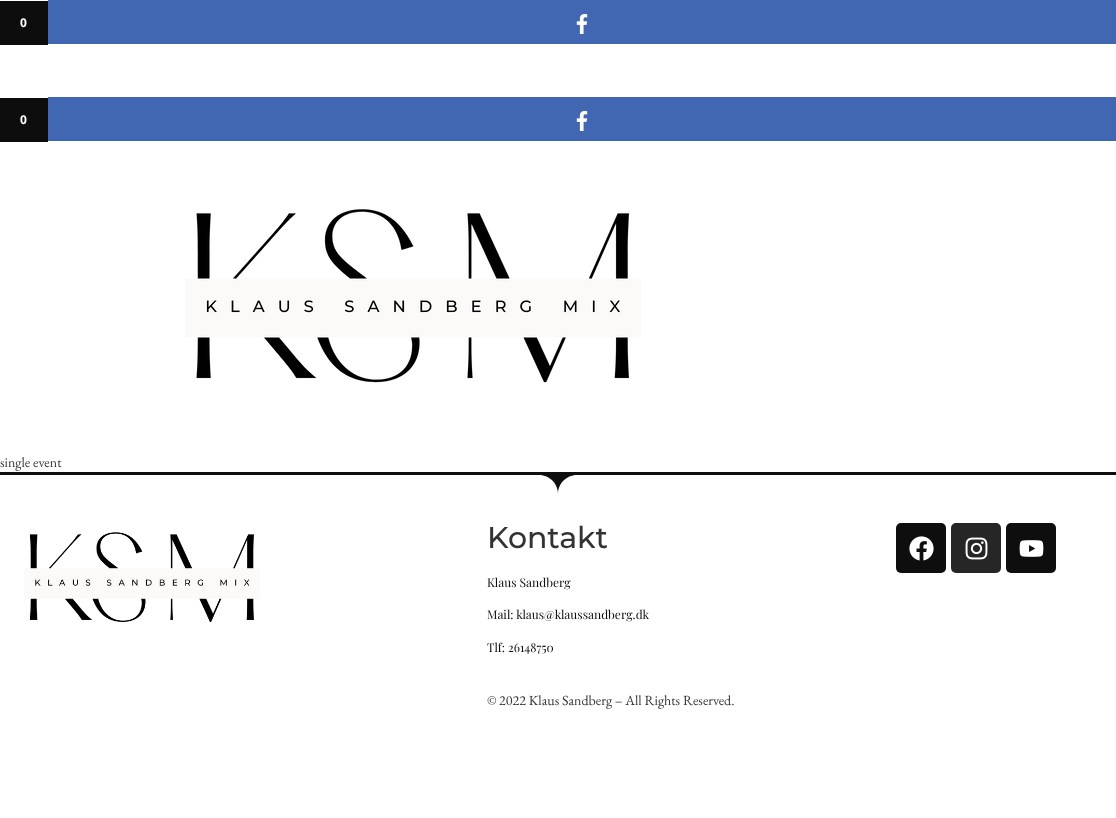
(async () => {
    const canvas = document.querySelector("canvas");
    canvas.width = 1116;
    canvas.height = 818;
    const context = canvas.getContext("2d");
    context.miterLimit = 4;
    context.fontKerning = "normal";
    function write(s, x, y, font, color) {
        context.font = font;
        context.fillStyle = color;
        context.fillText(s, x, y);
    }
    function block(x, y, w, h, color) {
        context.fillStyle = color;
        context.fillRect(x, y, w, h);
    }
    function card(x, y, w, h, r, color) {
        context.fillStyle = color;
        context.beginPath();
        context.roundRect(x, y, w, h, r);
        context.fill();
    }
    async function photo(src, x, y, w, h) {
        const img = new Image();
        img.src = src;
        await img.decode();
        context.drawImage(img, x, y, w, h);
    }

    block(0, 0, 1116, 818, "rgb(255, 255, 255)");
    block(0, 1, 48, 44, "rgb(13, 13, 13)");
    context.letterSpacing = "2px";
    write("0", 20, 27, "bold 12px Open Sans", "rgb(255, 255, 255)");
    block(48, 0, 1068, 44, "rgb(66, 103, 178)");
    await photo("media/1.png", 576, 14, 12, 20);
    block(0, 98, 48, 44, "rgb(13, 13, 13)");
    write("0", 20, 124, "bold 12px Open Sans", "rgb(255, 255, 255)");
    block(48, 97, 1068, 44, "rgb(66, 103, 178)");
    await photo("media/1.png", 576, 111, 12, 20);
    await photo("media/2.png", 185, 209, 456, 174);
    context.letterSpacing = "0px";
    write("single event", 0, 467, "14px EB Garamond", "rgb(51, 51, 51)");
    context.fillStyle = "rgb(14, 14, 14)";
    context.beginPath();
    context.moveTo(-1, 472);
    context.lineTo(-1, 475);
    context.lineTo(539, 475);
    context.bezierCurveTo(550, 475, 558, 484, 558, 494);
    context.bezierCurveTo(558, 484, 566, 475, 577, 475);
    context.lineTo(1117, 475);
    context.lineTo(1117, 472);
    context.closePath();
    context.fill();
    await photo("media/3.png", 24, 532, 236, 91);
    write("Kontakt", 487, 548, "500 30px Montserrat", "rgb(51, 51, 51)");
    write("Klaus Sandberg", 487, 587, "12px Playfair Display", "rgb(14, 14, 14)");
    write("Mail: klaus@klaussandberg.dk", 487, 619, "12px Playfair Display", "rgb(14, 14, 14)");
    write("Tlf: 26148750", 487, 652, "12px Playfair Display", "rgb(14, 14, 14)");
    write("© 2022 Klaus Sandberg – All Rights Reserved.", 487, 705, "14px EB Garamond", "rgb(51, 51, 51)");
    card(896, 523, 50, 50, 5, "rgb(14, 14, 14)");
    await photo("media/4.png", 909, 536, 25, 25);
    card(951, 523, 50, 50, 5, "rgb(38, 38, 38)");
    await photo("media/5.png", 965, 537, 23, 23);
    card(1006, 523, 50, 50, 5, "rgb(14, 14, 14)");
    await photo("media/6.png", 1019, 540, 25, 17);
})();
